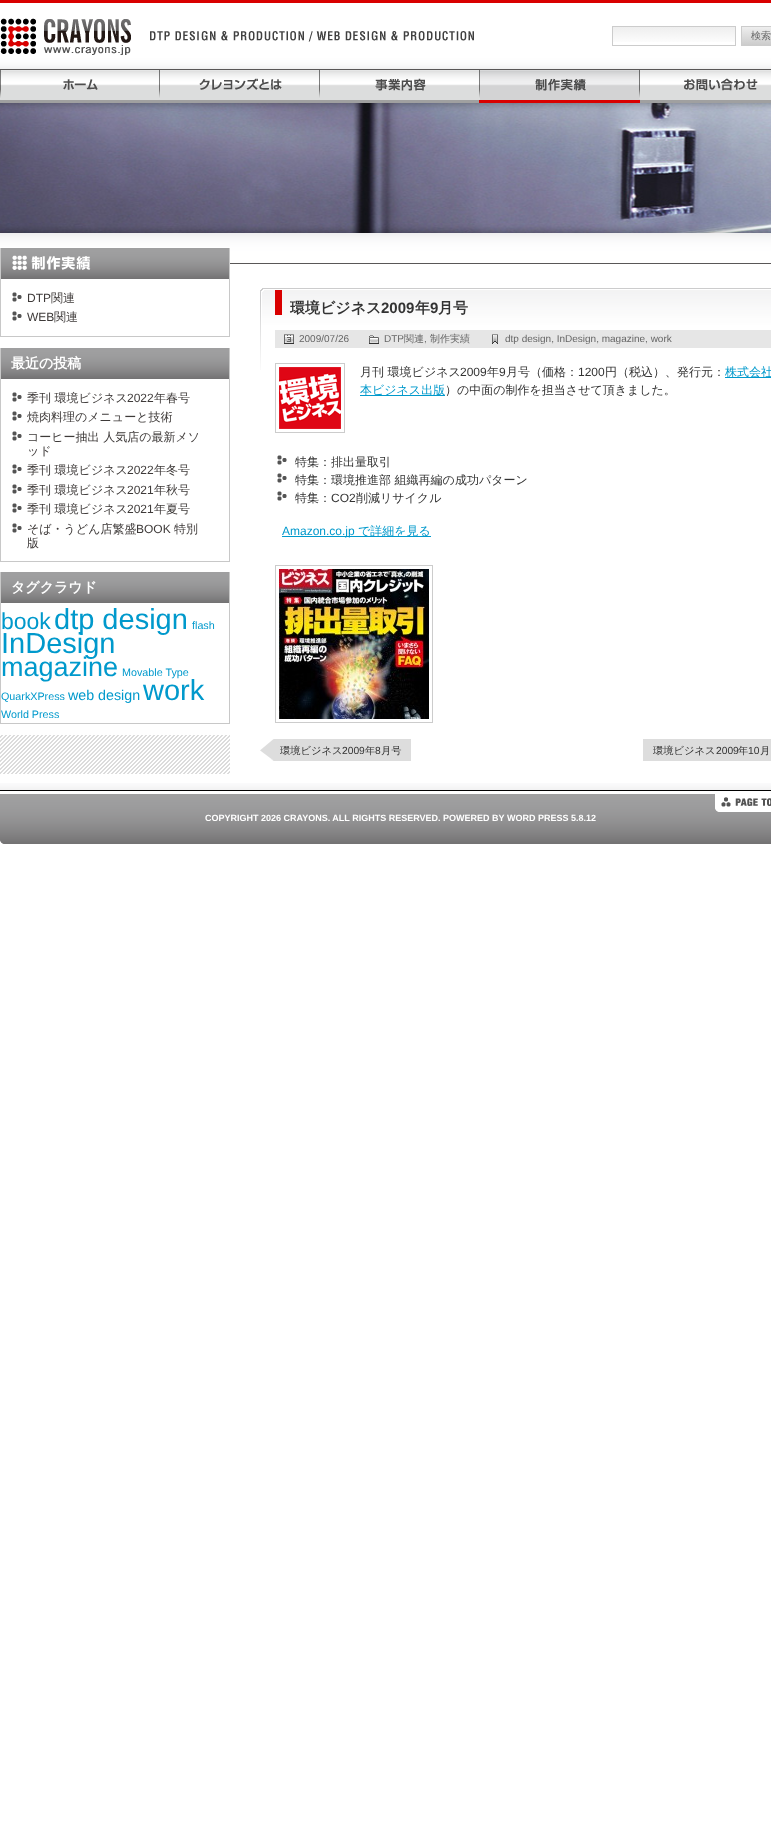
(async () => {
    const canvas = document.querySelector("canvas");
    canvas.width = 771;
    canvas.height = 1838;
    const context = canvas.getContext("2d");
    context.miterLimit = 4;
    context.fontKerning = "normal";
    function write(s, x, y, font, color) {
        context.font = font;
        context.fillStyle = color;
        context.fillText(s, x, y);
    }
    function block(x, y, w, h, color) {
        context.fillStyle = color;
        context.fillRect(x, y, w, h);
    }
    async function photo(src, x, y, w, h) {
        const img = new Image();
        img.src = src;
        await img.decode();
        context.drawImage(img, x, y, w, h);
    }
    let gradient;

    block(0, 0, 771, 1838, "rgb(255, 255, 255)");
    await photo("media/1.png", 0, 0, 771, 70);
    await photo("media/2.png", 0, 18, 131, 37);
    await photo("media/3.png", 150, 31, 324, 11);
    gradient = context.createLinearGradient(613, 27, 613, 45);
    gradient.addColorStop(0, "rgb(238, 238, 238)");
    gradient.addColorStop(1, "rgb(255, 255, 255)");
    context.fillStyle = gradient;
    context.fillRect(613, 27, 122, 15);
    context.strokeStyle = "rgb(204, 204, 204)";
    context.strokeRect(612.5, 26.5, 123, 19);
    gradient = context.createLinearGradient(742, 27, 742, 45);
    gradient.addColorStop(0, "rgb(238, 238, 238)");
    gradient.addColorStop(1, "rgb(204, 204, 204)");
    context.fillStyle = gradient;
    context.fillRect(742, 27, 29, 18);
    context.strokeRect(741.5, 26.5, 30, 19);
    write("検索", 751, 39, "500 10px WenQuanYi Zen Hei", "rgb(102, 102, 102)");
    await photo("media/4.png", 0, 100, 771, 3);
    await photo("media/5.png", 0, 70, 160, 30);
    await photo("media/6.png", 160, 70, 160, 30);
    await photo("media/7.png", 320, 70, 160, 30);
    await photo("media/8.png", 480, 70, 160, 30);
    await photo("media/9.png", 640, 70, 131, 30);
    await photo("media/10.png", 0, 103, 771, 130);
    await photo("media/11.png", 230, 233, 541, 31);
    await photo("media/12.png", 0, 735, 230, 39);
    await photo("media/13.png", 0, 233, 230, 14);
    block(229, 248, 1, 89, "rgb(200, 200, 200)");
    block(0, 336, 230, 1, "rgb(200, 200, 200)");
    block(0, 248, 1, 89, "rgb(200, 200, 200)");
    await photo("media/14.png", 1, 248, 228, 31);
    await photo("media/15.png", 12, 292, 10, 10);
    write("DTP", 27, 302, "12px Liberation Sans", "rgb(62, 58, 57)");
    write("関連", 51, 302, "500 12px WenQuanYi Zen Hei", "rgb(62, 58, 57)");
    await photo("media/15.png", 12, 311, 10, 10);
    write("WEB", 27, 321, "12px Liberation Sans", "rgb(62, 58, 57)");
    write("関連", 54, 321, "500 12px WenQuanYi Zen Hei", "rgb(62, 58, 57)");
    block(229, 348, 1, 214, "rgb(200, 200, 200)");
    block(0, 561, 230, 1, "rgb(200, 200, 200)");
    block(0, 348, 1, 214, "rgb(200, 200, 200)");
    await photo("media/16.png", 1, 348, 228, 31);
    write("最近の投稿", 11, 368, "bold 14px WenQuanYi Zen Hei", "rgb(255, 255, 255)");
    await photo("media/15.png", 12, 392, 10, 10);
    write("季刊 環境ビジネス", 27, 402, "500 12px WenQuanYi Zen Hei", "rgb(62, 58, 57)");
    write("2022", 127, 402, "12px Liberation Sans", "rgb(62, 58, 57)");
    write("年春号", 154, 402, "500 12px WenQuanYi Zen Hei", "rgb(62, 58, 57)");
    await photo("media/15.png", 12, 411, 10, 10);
    write("焼肉料理のメニューと技術", 27, 421, "500 12px WenQuanYi Zen Hei", "rgb(62, 58, 57)");
    await photo("media/15.png", 12, 431, 10, 10);
    write("コーヒー抽出 人気店の最新メソ", 27, 441, "500 12px WenQuanYi Zen Hei", "rgb(62, 58, 57)");
    write("ッド", 27, 455, "500 12px WenQuanYi Zen Hei", "rgb(62, 58, 57)");
    await photo("media/15.png", 12, 464, 10, 10);
    write("季刊 環境ビジネス", 27, 474, "500 12px WenQuanYi Zen Hei", "rgb(62, 58, 57)");
    write("2022", 127, 474, "12px Liberation Sans", "rgb(62, 58, 57)");
    write("年冬号", 154, 474, "500 12px WenQuanYi Zen Hei", "rgb(62, 58, 57)");
    await photo("media/15.png", 12, 484, 10, 10);
    write("季刊 環境ビジネス", 27, 494, "500 12px WenQuanYi Zen Hei", "rgb(62, 58, 57)");
    write("2021", 127, 494, "12px Liberation Sans", "rgb(62, 58, 57)");
    write("年秋号", 154, 494, "500 12px WenQuanYi Zen Hei", "rgb(62, 58, 57)");
    await photo("media/15.png", 12, 503, 10, 10);
    write("季刊 環境ビジネス", 27, 513, "500 12px WenQuanYi Zen Hei", "rgb(62, 58, 57)");
    write("2021", 127, 513, "12px Liberation Sans", "rgb(62, 58, 57)");
    write("年夏号", 154, 513, "500 12px WenQuanYi Zen Hei", "rgb(62, 58, 57)");
    await photo("media/15.png", 12, 523, 10, 10);
    write("そば・うどん店繁盛", 27, 533, "500 12px WenQuanYi Zen Hei", "rgb(62, 58, 57)");
    write("BOOK", 136, 533, "12px Liberation Sans", "rgb(62, 58, 57)");
    write("特別", 174, 533, "500 12px WenQuanYi Zen Hei", "rgb(62, 58, 57)");
    write("版", 27, 547, "500 12px WenQuanYi Zen Hei", "rgb(62, 58, 57)");
    block(229, 572, 1, 152, "rgb(200, 200, 200)");
    block(0, 723, 230, 1, "rgb(200, 200, 200)");
    block(0, 572, 1, 152, "rgb(200, 200, 200)");
    await photo("media/16.png", 1, 572, 228, 31);
    write("タグクラウド", 11, 592, "bold 14px WenQuanYi Zen Hei", "rgb(255, 255, 255)");
    write("book", 1, 629, "23px Liberation Sans", "rgb(0, 153, 204)");
    write("dtp design", 54, 629, "29px Liberation Sans", "rgb(0, 153, 204)");
    write("flash", 192, 629, "10.75px Liberation Sans", "rgb(0, 153, 204)");
    write("InDesign", 1, 653, "29px Liberation Sans", "rgb(0, 153, 204)");
    write("magazine", 1, 676, "27px Liberation Sans", "rgb(0, 153, 204)");
    write("Movable Type", 122, 676, "10.75px Liberation Sans", "rgb(0, 153, 204)");
    write("QuarkXPress", 1, 700, "10.75px Liberation Sans", "rgb(0, 153, 204)");
    write("web design", 68, 700, "14.25px Liberation Sans", "rgb(0, 153, 204)");
    write("work", 143, 700, "29px Liberation Sans", "rgb(0, 153, 204)");
    write("World Press", 1, 718, "10.75px Liberation Sans", "rgb(0, 153, 204)");
    await photo("media/17.png", 260, 288, 511, 82);
    write("環境ビジネス", 290, 313, "bold 15px WenQuanYi Zen Hei", "rgb(51, 51, 51)");
    write("2009", 381, 313, "bold 15px Liberation Sans", "rgb(51, 51, 51)");
    write("年", 415, 313, "bold 15px WenQuanYi Zen Hei", "rgb(51, 51, 51)");
    write("9", 430, 313, "bold 15px Liberation Sans", "rgb(51, 51, 51)");
    write("月号", 438, 313, "bold 15px WenQuanYi Zen Hei", "rgb(51, 51, 51)");
    block(275, 330, 496, 18, "rgb(230, 230, 230)");
    await photo("media/18.png", 284, 334, 10, 10);
    write("2009/07/26", 299, 342, "10px Liberation Sans", "rgb(102, 102, 102)");
    await photo("media/19.png", 369, 335, 10, 9);
    write("DTP", 384, 342, "10px Liberation Sans", "rgb(102, 102, 102)");
    write("関連", 404, 342, "500 10px WenQuanYi Zen Hei", "rgb(102, 102, 102)");
    write(",", 424, 342, "10px Liberation Sans", "rgb(102, 102, 102)");
    write("制作実績", 430, 342, "500 10px WenQuanYi Zen Hei", "rgb(102, 102, 102)");
    await photo("media/20.png", 492, 334, 6, 10);
    write("dtp design, InDesign, magazine, work", 505, 342, "10px Liberation Sans", "rgb(102, 102, 102)");
    context.strokeRect(275.5, 363.5, 69, 69);
    await photo("media/21.png", 279, 367, 62, 62);
    write("月刊 環境ビジネス", 360, 376, "500 12px WenQuanYi Zen Hei", "rgb(51, 51, 51)");
    write("2009", 460, 376, "12px Liberation Sans", "rgb(51, 51, 51)");
    write("年", 487, 376, "500 12px WenQuanYi Zen Hei", "rgb(51, 51, 51)");
    write("9", 499, 376, "12px Liberation Sans", "rgb(51, 51, 51)");
    write("月号（価格：", 506, 376, "500 12px WenQuanYi Zen Hei", "rgb(51, 51, 51)");
    write("1200", 578, 376, "12px Liberation Sans", "rgb(51, 51, 51)");
    write("円（税込）、発行元：", 605, 376, "500 12px WenQuanYi Zen Hei", "rgb(51, 51, 51)");
    block(725, 377, 46, 1, "rgb(0, 153, 204)");
    write("株式会社", 725, 376, "500 12px WenQuanYi Zen Hei", "rgb(0, 153, 204)");
    block(360, 395, 85, 1, "rgb(0, 153, 204)");
    write("本ビジネス出版", 360, 394, "500 12px WenQuanYi Zen Hei", "rgb(0, 153, 204)");
    write("）の中面の制作を担当させて頂きました。", 445, 394, "500 12px WenQuanYi Zen Hei", "rgb(51, 51, 51)");
    await photo("media/15.png", 277, 455, 10, 10);
    write("特集：排出量取引", 295, 466, "500 12px WenQuanYi Zen Hei", "rgb(51, 51, 51)");
    await photo("media/15.png", 277, 473, 10, 10);
    write("特集：環境推進部 組織再編の成功パターン", 295, 484, "500 12px WenQuanYi Zen Hei", "rgb(51, 51, 51)");
    await photo("media/15.png", 277, 491, 10, 10);
    write("特集：", 295, 502, "500 12px WenQuanYi Zen Hei", "rgb(51, 51, 51)");
    write("CO2", 331, 502, "12px Liberation Sans", "rgb(51, 51, 51)");
    write("削減リサイクル", 356, 502, "500 12px WenQuanYi Zen Hei", "rgb(51, 51, 51)");
    block(282, 536, 149, 1, "rgb(0, 153, 204)");
    write("Amazon.co.jp", 282, 535, "12px Liberation Sans", "rgb(0, 153, 204)");
    write("で詳細を見る", 358, 535, "500 12px WenQuanYi Zen Hei", "rgb(0, 153, 204)");
    context.strokeRect(275.5, 565.5, 157, 157);
    await photo("media/22.png", 279, 569, 150, 150);
    await photo("media/23.png", 260, 739, 151, 22);
    write("環境ビジネス", 280, 754, "500 10.25px WenQuanYi Zen Hei", "rgb(51, 51, 51)");
    write("2009", 342, 754, "10.25px Liberation Sans", "rgb(51, 51, 51)");
    write("年", 365, 754, "500 10.25px WenQuanYi Zen Hei", "rgb(51, 51, 51)");
    write("8", 375, 754, "10.25px Liberation Sans", "rgb(51, 51, 51)");
    write("月号", 381, 754, "500 10.25px WenQuanYi Zen Hei", "rgb(51, 51, 51)");
    block(643, 739, 128, 22, "rgb(221, 221, 221)");
    write("環境ビジネス", 653, 754, "500 10.25px WenQuanYi Zen Hei", "rgb(51, 51, 51)");
    write("2009", 716, 754, "10.25px Liberation Sans", "rgb(51, 51, 51)");
    write("年", 738, 754, "500 10.25px WenQuanYi Zen Hei", "rgb(51, 51, 51)");
    write("10", 748, 754, "10.25px Liberation Sans", "rgb(51, 51, 51)");
    write("月", 760, 754, "500 10.25px WenQuanYi Zen Hei", "rgb(51, 51, 51)");
    await photo("media/24.png", 0, 783, 771, 61);
    await photo("media/25.png", 715, 794, 56, 18);
    write("COPYRIGHT 2026 CRAYONS. ALL RIGHTS RESERVED. POWERED BY WORD PRESS 5.8.12", 205, 821, "bold 9px Liberation Sans", "rgb(255, 255, 255)");
})();
